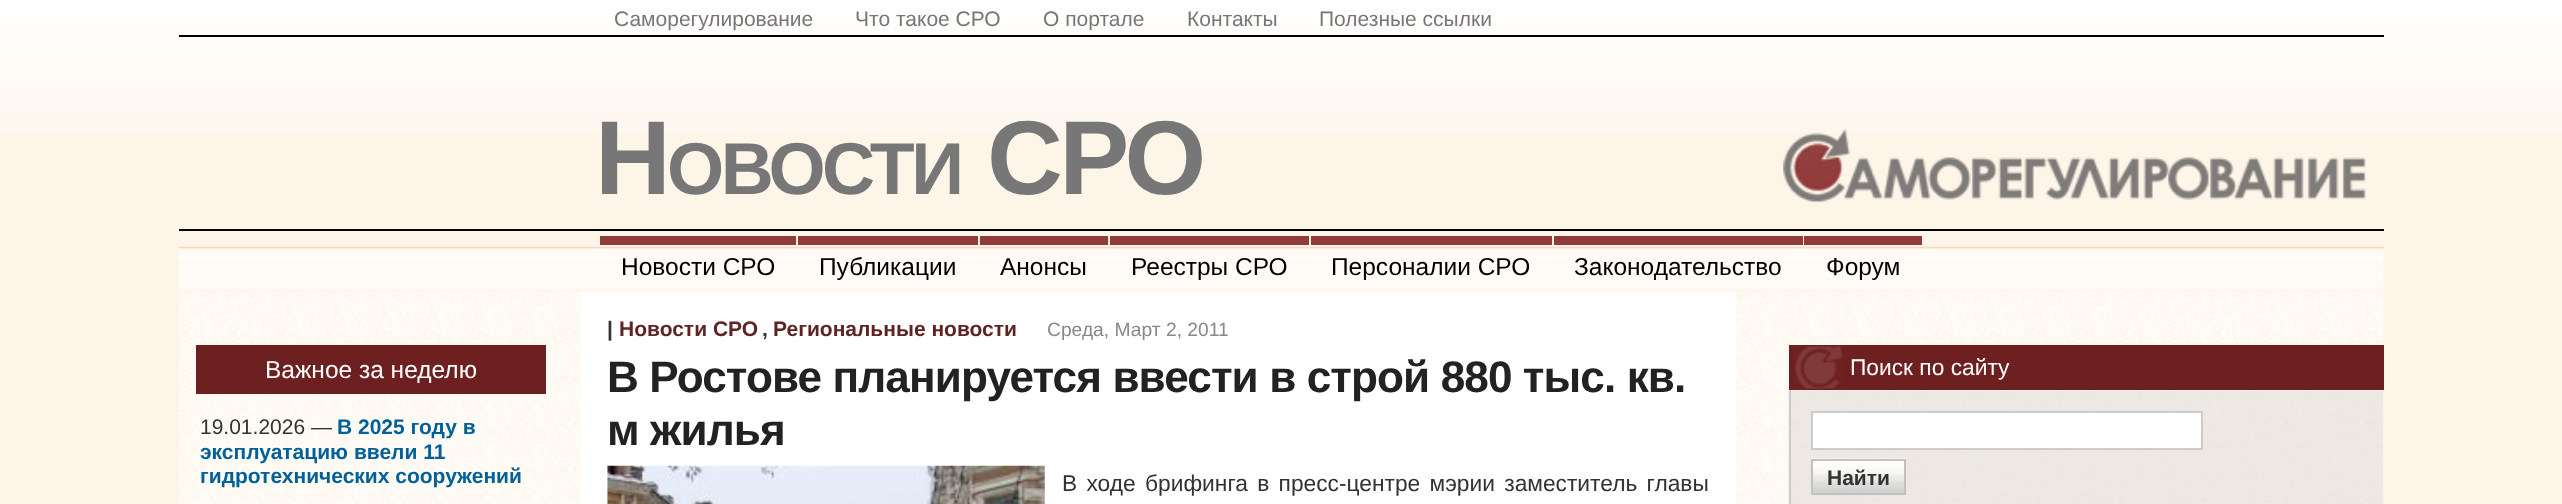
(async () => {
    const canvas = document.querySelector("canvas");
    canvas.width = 2562;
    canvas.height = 504;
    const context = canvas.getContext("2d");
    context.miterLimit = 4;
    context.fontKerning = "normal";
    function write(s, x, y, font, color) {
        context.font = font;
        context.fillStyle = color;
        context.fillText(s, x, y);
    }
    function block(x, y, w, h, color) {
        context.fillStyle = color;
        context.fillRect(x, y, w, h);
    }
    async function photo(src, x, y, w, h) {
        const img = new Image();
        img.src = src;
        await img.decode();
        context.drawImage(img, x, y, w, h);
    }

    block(0, 0, 2562, 504, "rgb(254, 245, 233)");
    await photo("media/1.png", 0, 0, 2562, 133);
    write("Саморегулирование", 614, 26, "21px Liberation Sans", "rgb(119, 119, 119)");
    write("Что такое СРО", 855, 26, "21px Liberation Sans", "rgb(119, 119, 119)");
    write("О портале", 1043, 26, "21px Liberation Sans", "rgb(119, 119, 119)");
    write("Контакты", 1187, 26, "21px Liberation Sans", "rgb(119, 119, 119)");
    write("Полезные ссылки", 1319, 26, "21px Liberation Sans", "rgb(119, 119, 119)");
    block(179, 35, 2205, 2, "rgb(0, 0, 0)");
    block(179, 229, 2205, 2, "rgb(0, 0, 0)");
    context.letterSpacing = "-3.5px";
    write("Н", 595, 194, "bold 105px Liberation Sans", "rgb(119, 119, 119)");
    write("ОВОСТИ", 667, 194, "bold 73.5px Liberation Sans", "rgb(119, 119, 119)");
    write("СРО", 987, 194, "bold 105px Liberation Sans", "rgb(119, 119, 119)");
    await photo("media/2.png", 1783, 129, 583, 74);
    await photo("media/3.png", 178, 246, 2206, 46);
    context.letterSpacing = "0px";
    write("Новости СРО", 621, 275, "24.5px Liberation Sans", "rgb(0, 0, 0)");
    block(600, 236, 196, 9, "rgb(146, 59, 59)");
    write("Публикации", 819, 275, "24.5px Liberation Sans", "rgb(0, 0, 0)");
    block(798, 236, 180, 9, "rgb(146, 59, 59)");
    write("Анонсы", 1000, 275, "24.5px Liberation Sans", "rgb(0, 0, 0)");
    block(980, 236, 128, 9, "rgb(146, 59, 59)");
    write("Реестры СРО", 1131, 275, "24.5px Liberation Sans", "rgb(0, 0, 0)");
    block(1110, 236, 199, 9, "rgb(146, 59, 59)");
    write("Персоналии СРО", 1331, 275, "24.5px Liberation Sans", "rgb(0, 0, 0)");
    block(1311, 236, 241, 9, "rgb(146, 59, 59)");
    write("Законодательство", 1574, 275, "24.5px Liberation Sans", "rgb(0, 0, 0)");
    block(1554, 236, 249, 9, "rgb(146, 59, 59)");
    write("Форум", 1826, 275, "24.5px Liberation Sans", "rgb(0, 0, 0)");
    block(1804, 236, 118, 9, "rgb(146, 59, 59)");
    await photo("media/4.png", 178, 292, 2206, 212);
    block(196, 345, 350, 49, "rgb(110, 31, 31)");
    write("Важное за неделю", 265, 378, "24.5px Liberation Sans", "rgb(255, 255, 255)");
    write("19.01.2026 —", 200, 434, "21px Liberation Sans", "rgb(51, 51, 51)");
    write("В 2025 году в", 337, 434, "bold 21px Liberation Sans", "rgb(0, 96, 154)");
    write("эксплуатацию ввели 11", 200, 459, "bold 21px Liberation Sans", "rgb(0, 96, 154)");
    write("гидротехнических сооружений", 200, 483, "bold 21px Liberation Sans", "rgb(0, 96, 154)");
    block(581, 292, 1155, 212, "rgb(255, 255, 255)");
    write("|", 607, 336, "bold 21px Liberation Sans", "rgb(51, 51, 51)");
    write("Новости СРО", 619, 336, "bold 21px Liberation Sans", "rgb(95, 35, 35)");
    write(",", 762, 336, "bold 21px Liberation Sans", "rgb(51, 51, 51)");
    write("Региональные новости", 773, 336, "bold 21px Liberation Sans", "rgb(95, 35, 35)");
    write("Среда, Март 2, 2011", 1047, 336, "19.25px Liberation Sans", "rgb(136, 136, 136)");
    context.letterSpacing = "-0.9px";
    write("В Ростове планируется ввести в строй 880 тыс. кв.", 607, 392, "bold 44.1px Liberation Sans", "rgb(34, 34, 34)");
    write("м жилья", 607, 445, "bold 44.1px Liberation Sans", "rgb(34, 34, 34)");
    await photo("media/5.png", 607, 465, 438, 39);
    context.letterSpacing = "0px";
    context.wordSpacing = "3px";
    write("В ходе брифинга в пресс-центре мэрии заместитель главы", 1062, 491, "22.75px Liberation Sans", "rgb(51, 51, 51)");
    block(1789, 345, 595, 45, "rgb(110, 31, 31)");
    await photo("media/6.png", 1795, 346, 48, 43);
    context.wordSpacing = "0px";
    write("Поиск по сайту", 1850, 375, "22.75px Liberation Sans", "rgb(255, 255, 255)");
    await photo("media/7.png", 1788, 390, 596, 114);
    block(1789, 390, 2, 114, "rgb(204, 204, 204)");
    context.fillStyle = "rgb(255, 255, 255)";
    context.beginPath();
    context.rect(1812, 412, 390, 37);
    context.fill();
    context.strokeStyle = "rgb(204, 204, 204)";
    context.lineWidth = 2;
    context.stroke();
    await photo("media/8.png", 1811, 458, 95, 35);
    context.strokeStyle = "rgb(193, 193, 193)";
    context.strokeRect(1812, 460, 93, 34);
    write("Найти", 1827, 485, "bold 21px Liberation Sans", "rgb(51, 51, 51)");
})();
